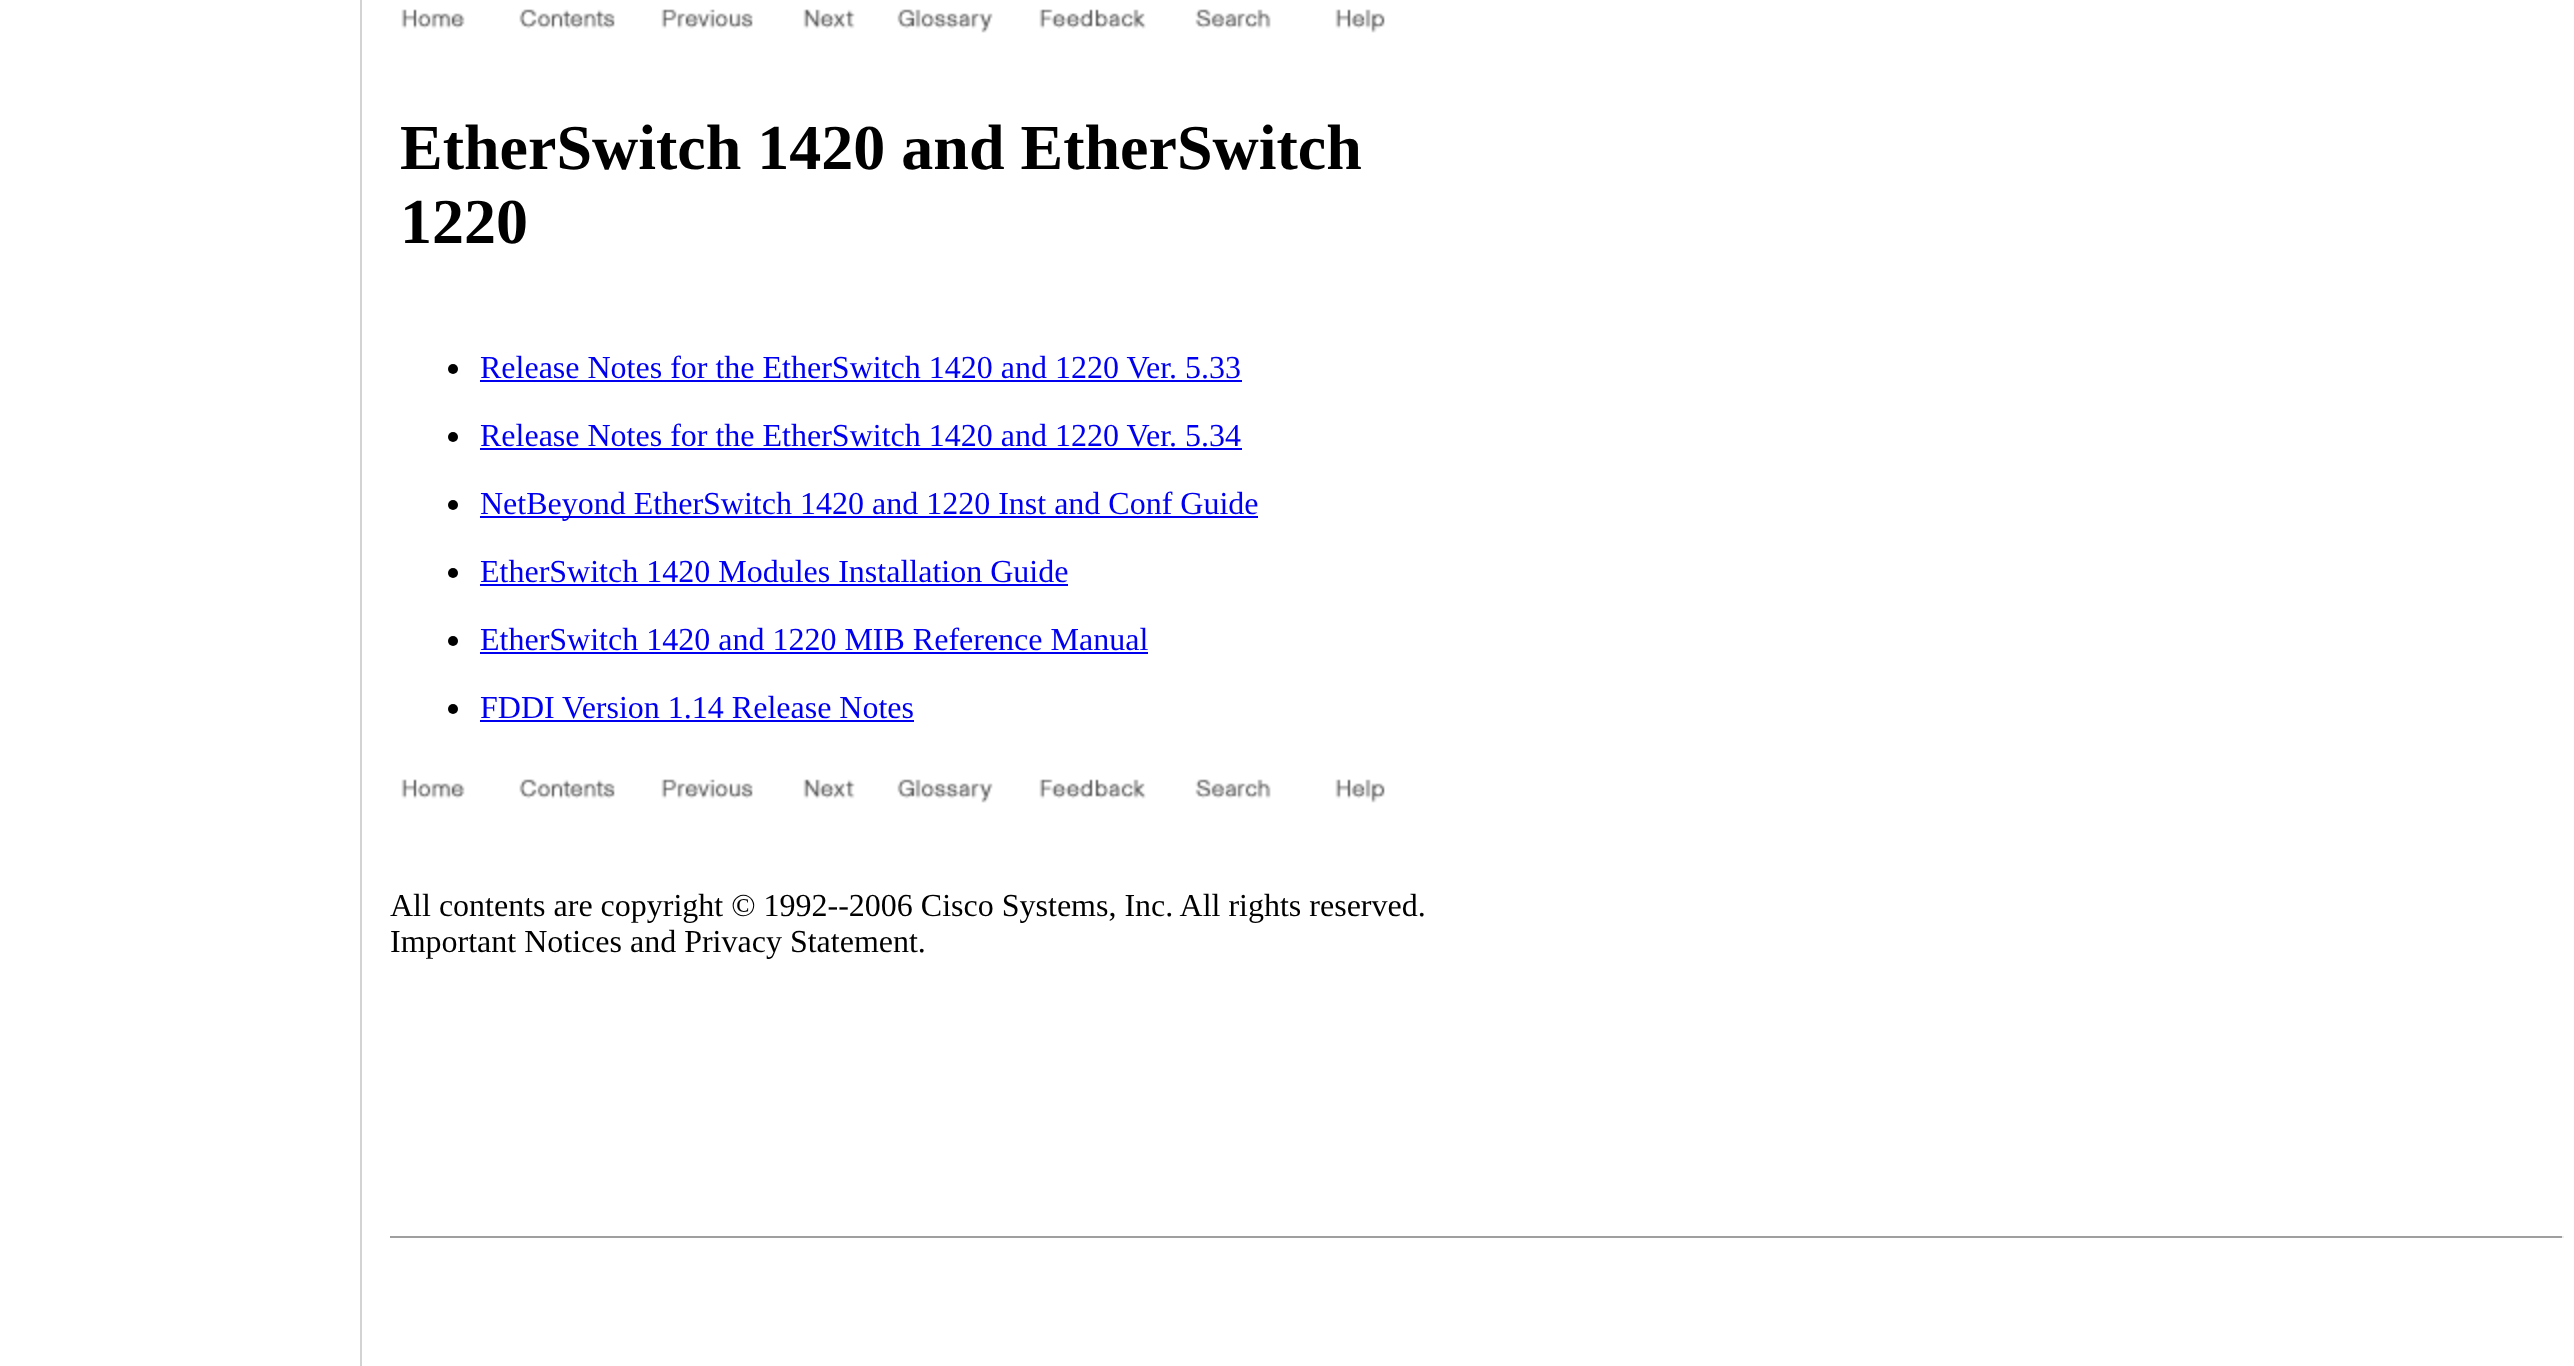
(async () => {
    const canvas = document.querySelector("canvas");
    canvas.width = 2574;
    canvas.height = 1366;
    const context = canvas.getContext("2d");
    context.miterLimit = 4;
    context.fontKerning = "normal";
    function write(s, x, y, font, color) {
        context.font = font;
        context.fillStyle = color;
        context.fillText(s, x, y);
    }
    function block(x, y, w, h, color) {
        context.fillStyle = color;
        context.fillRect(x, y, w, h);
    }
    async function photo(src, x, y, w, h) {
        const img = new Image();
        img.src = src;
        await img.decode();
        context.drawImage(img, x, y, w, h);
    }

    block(0, 0, 2574, 1366, "rgb(255, 255, 255)");
    block(360, 0, 2, 1366, "rgb(211, 211, 211)");
    await photo("media/1.png", 401, 9, 64, 20);
    await photo("media/2.png", 519, 9, 96, 20);
    await photo("media/3.png", 661, 9, 92, 20);
    await photo("media/4.png", 803, 9, 52, 20);
    await photo("media/5.png", 897, 9, 96, 24);
    await photo("media/6.png", 1039, 9, 107, 20);
    await photo("media/7.png", 1195, 9, 76, 20);
    await photo("media/8.png", 1335, 9, 50, 24);
    write("EtherSwitch 1420 and EtherSwitch", 400, 169, "bold 64px Liberation Serif", "rgb(0, 0, 0)");
    write("1220", 400, 243, "bold 64px Liberation Serif", "rgb(0, 0, 0)");
    context.beginPath();
    context.arc(453, 369, 5, 0, Math.PI * 2);
    context.fill();
    write("Release Notes for the EtherSwitch 1420 and 1220 Ver. 5.33", 480, 378, "32px Liberation Serif", "rgb(0, 0, 238)");
    block(480, 380, 762, 2, "rgb(0, 0, 238)");
    context.fillStyle = "rgb(0, 0, 0)";
    context.beginPath();
    context.arc(453, 437, 5, 0, Math.PI * 2);
    context.fill();
    write("Release Notes for the EtherSwitch 1420 and 1220 Ver. 5.34", 480, 446, "32px Liberation Serif", "rgb(0, 0, 238)");
    block(480, 448, 762, 2, "rgb(0, 0, 238)");
    context.fillStyle = "rgb(0, 0, 0)";
    context.beginPath();
    context.arc(453, 505, 5, 0, Math.PI * 2);
    context.fill();
    block(480, 516, 778, 2, "rgb(0, 0, 238)");
    write("NetBeyond EtherSwitch 1420 and 1220 Inst and Conf Guide", 480, 514, "32px Liberation Serif", "rgb(0, 0, 238)");
    context.fillStyle = "rgb(0, 0, 0)";
    context.beginPath();
    context.arc(453, 573, 5, 0, Math.PI * 2);
    context.fill();
    write("EtherSwitch 1420 Modules Installation Guide", 480, 582, "32px Liberation Serif", "rgb(0, 0, 238)");
    block(480, 584, 588, 2, "rgb(0, 0, 238)");
    context.fillStyle = "rgb(0, 0, 0)";
    context.beginPath();
    context.arc(453, 641, 5, 0, Math.PI * 2);
    context.fill();
    write("EtherSwitch 1420 and 1220 MIB Reference Manual", 480, 650, "32px Liberation Serif", "rgb(0, 0, 238)");
    block(480, 652, 668, 2, "rgb(0, 0, 238)");
    context.fillStyle = "rgb(0, 0, 0)";
    context.beginPath();
    context.arc(453, 709, 5, 0, Math.PI * 2);
    context.fill();
    write("FDDI Version 1.14 Release Notes", 480, 718, "32px Liberation Serif", "rgb(0, 0, 238)");
    block(480, 720, 434, 2, "rgb(0, 0, 238)");
    await photo("media/1.png", 401, 779, 64, 20);
    await photo("media/2.png", 519, 779, 96, 20);
    await photo("media/3.png", 661, 779, 92, 20);
    await photo("media/4.png", 803, 779, 52, 20);
    await photo("media/5.png", 897, 779, 96, 24);
    await photo("media/6.png", 1039, 779, 107, 20);
    await photo("media/7.png", 1195, 779, 76, 20);
    await photo("media/8.png", 1335, 779, 50, 24);
    write("All contents are copyright © 1992--2006 Cisco Systems, Inc. All rights reserved.", 390, 916, "32px Liberation Serif", "rgb(0, 0, 0)");
    write("Important Notices and Privacy Statement.", 390, 952, "32px Liberation Serif", "rgb(0, 0, 0)");
    block(390, 1236, 2174, 2, "rgb(159, 159, 159)");
    block(2562, 1236, 2, 2, "rgb(238, 238, 238)");
})();
